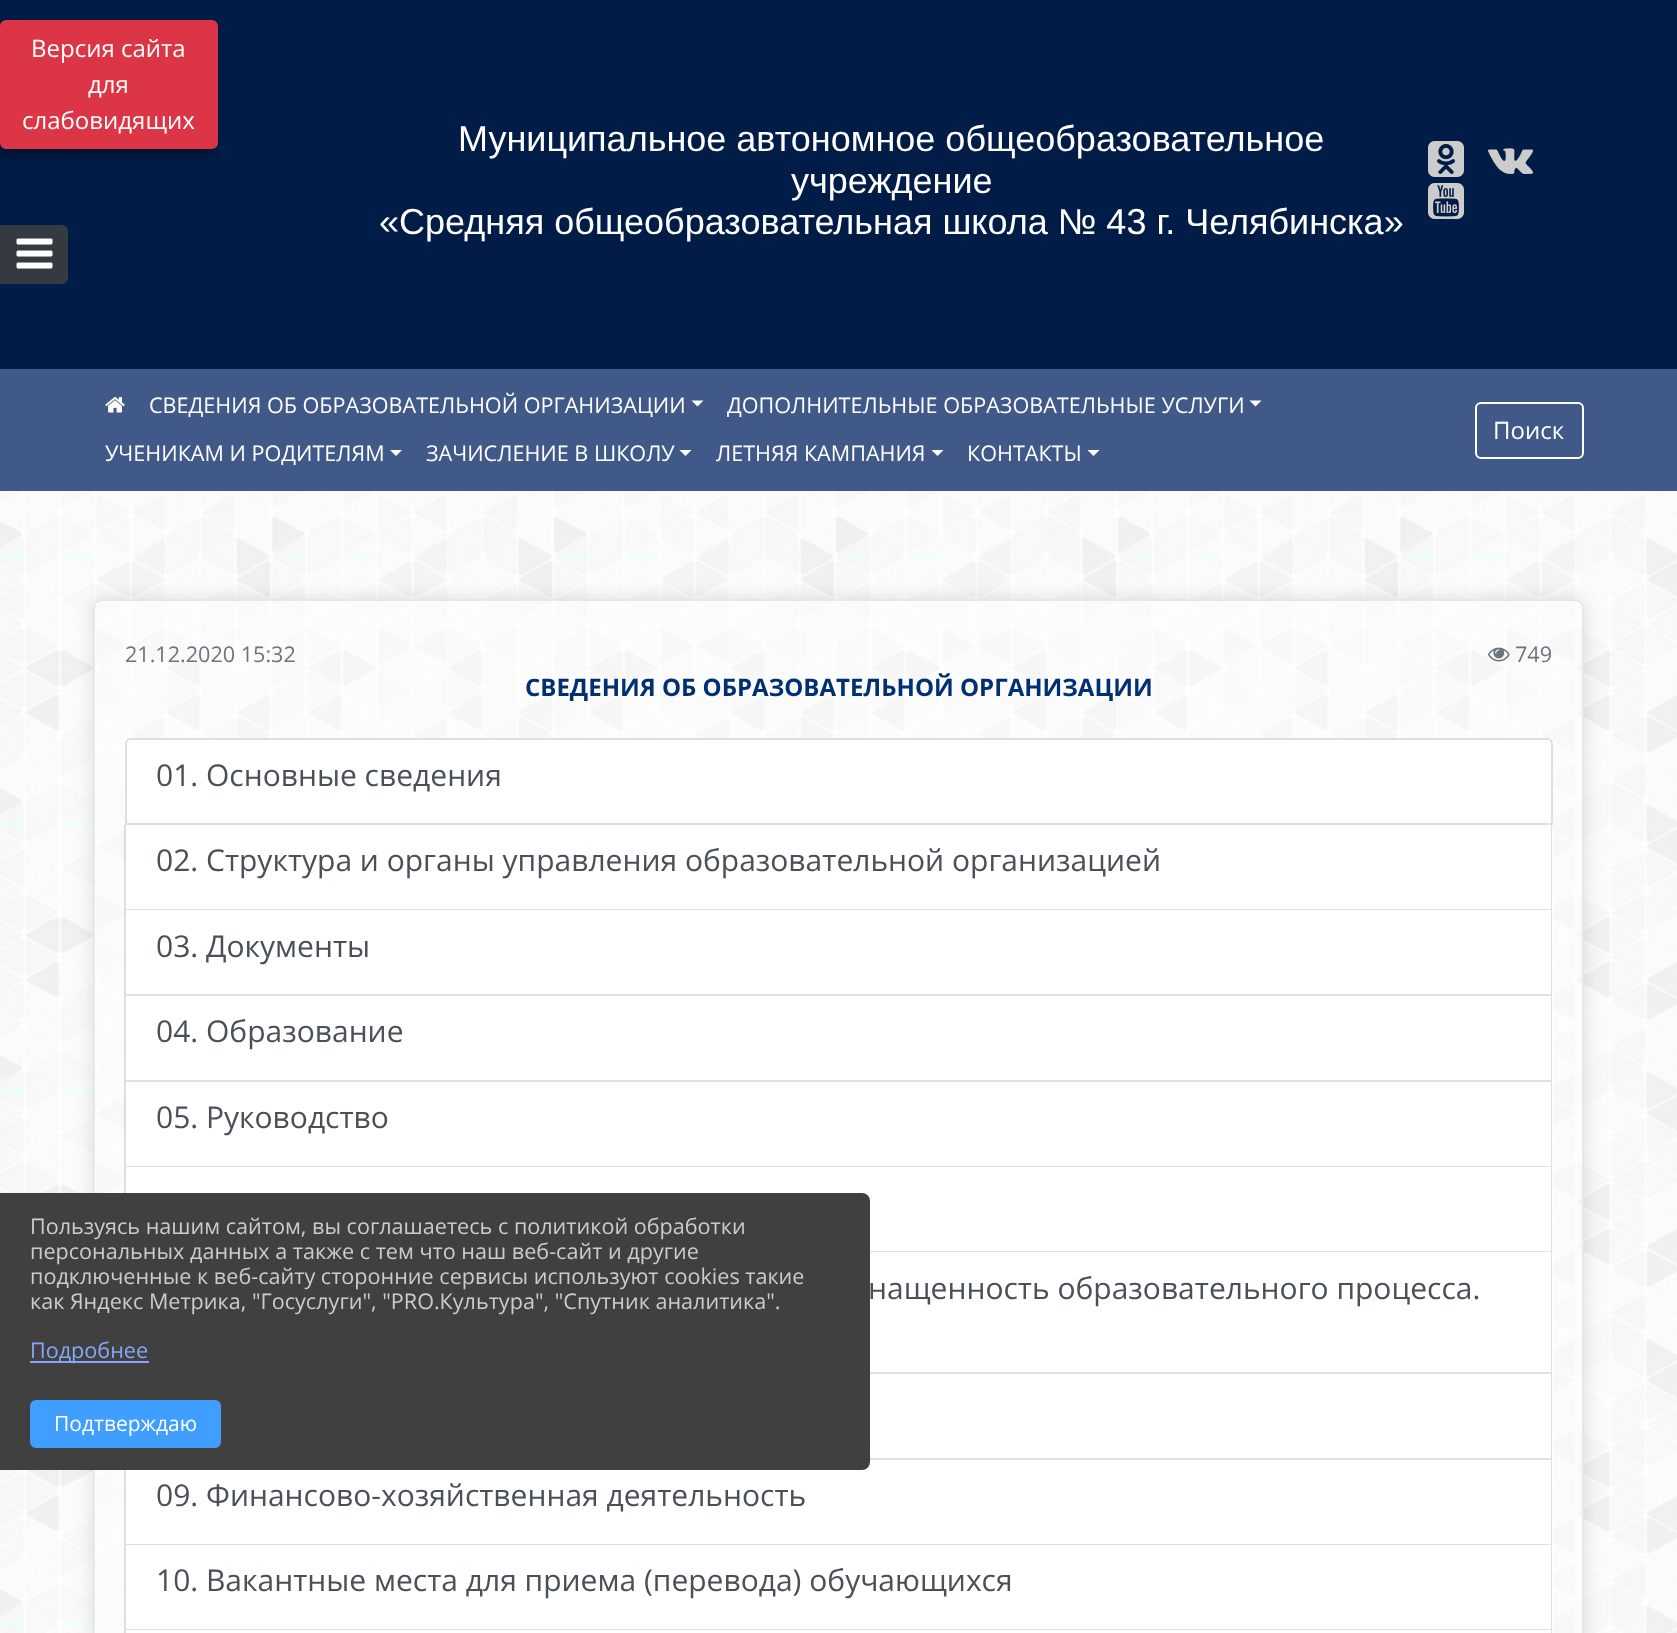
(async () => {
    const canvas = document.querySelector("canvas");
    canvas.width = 1677;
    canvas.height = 1633;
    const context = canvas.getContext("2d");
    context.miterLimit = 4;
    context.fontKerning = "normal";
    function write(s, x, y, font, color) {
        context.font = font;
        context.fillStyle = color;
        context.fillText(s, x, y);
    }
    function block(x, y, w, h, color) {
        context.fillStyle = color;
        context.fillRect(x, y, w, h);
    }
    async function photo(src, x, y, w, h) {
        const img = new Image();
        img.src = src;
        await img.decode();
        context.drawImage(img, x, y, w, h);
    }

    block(0, 0, 1677, 1633, "rgb(255, 255, 255)");
    await photo("media/1.png", 0, 491, 1677, 1142);
    block(0, 0, 1677, 369, "rgb(0, 28, 71)");
    context.fillStyle = "rgba(0, 0, 0, 0.35)";
    context.filter = "blur(6px)";
    context.beginPath();
    context.roundRect(-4, 30, 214, 126, 5);
    context.fill();
    context.filter = "none";
    context.fillStyle = "rgb(220, 53, 69)";
    context.beginPath();
    context.roundRect(1, 21, 216, 127, 5);
    context.fill();
    context.strokeStyle = "rgb(220, 53, 69)";
    context.lineWidth = 2;
    context.stroke();
    write("Версия сайта", 31, 57, "24px Open Sans", "rgb(255, 255, 255)");
    write("для", 88, 93, "24px Open Sans", "rgb(255, 255, 255)");
    write("слабовидящих", 22, 129, "24px Open Sans", "rgb(255, 255, 255)");
    context.fillStyle = "rgb(52, 58, 64)";
    context.beginPath();
    context.roundRect(1, 226, 66, 57, [0, 5, 5, 0]);
    context.fill();
    context.strokeStyle = "rgb(52, 58, 64)";
    context.stroke();
    await photo("media/2.png", 16, 238, 37, 31);
    write("Муниципальное автономное общеобразовательное", 458, 151, "36px Liberation Sans", "rgb(255, 255, 255)");
    write("учреждение", 791, 193, "36px Liberation Sans", "rgb(255, 255, 255)");
    write("«Средняя общеобразовательная школа № 43 г. Челябинска»", 379, 234, "36px Liberation Sans", "rgb(255, 255, 255)");
    await photo("media/3.png", 1428, 141, 36, 36);
    await photo("media/4.png", 1488, 148, 45, 26);
    await photo("media/5.png", 1428, 183, 36, 36);
    block(0, 369, 1677, 122, "rgb(64, 89, 136)");
    await photo("media/6.png", 105, 397, 20, 16);
    write("СВЕДЕНИЯ ОБ ОБРАЗОВАТЕЛЬНОЙ ОРГАНИЗАЦИИ", 149, 413, "21.6px Open Sans", "rgb(255, 255, 255)");
    context.beginPath();
    context.moveTo(691.5, 400.5);
    context.lineTo(703.5, 400.5);
    context.lineTo(697.5, 406.5);
    context.closePath();
    context.fill();
    write("ДОПОЛНИТЕЛЬНЫЕ ОБРАЗОВАТЕЛЬНЫЕ УСЛУГИ", 727, 413, "21.6px Open Sans", "rgb(255, 255, 255)");
    context.beginPath();
    context.moveTo(1249.5, 400.5);
    context.lineTo(1261.5, 400.5);
    context.lineTo(1255.5, 406.5);
    context.closePath();
    context.fill();
    write("УЧЕНИКАМ И РОДИТЕЛЯМ", 105, 461, "21.6px Open Sans", "rgb(255, 255, 255)");
    context.beginPath();
    context.moveTo(390, 450);
    context.lineTo(402, 450);
    context.lineTo(396, 456);
    context.closePath();
    context.fill();
    write("ЗАЧИСЛЕНИЕ В ШКОЛУ", 426, 461, "21.6px Open Sans", "rgb(255, 255, 255)");
    context.beginPath();
    context.moveTo(679.5, 450);
    context.lineTo(691.5, 450);
    context.lineTo(685.5, 456);
    context.closePath();
    context.fill();
    write("ЛЕТНЯЯ КАМПАНИЯ", 716, 461, "21.6px Open Sans", "rgb(255, 255, 255)");
    context.beginPath();
    context.moveTo(931.5, 450);
    context.lineTo(943.5, 450);
    context.lineTo(937.5, 456);
    context.closePath();
    context.fill();
    write("КОНТАКТЫ", 967, 461, "21.6px Open Sans", "rgb(255, 255, 255)");
    context.beginPath();
    context.moveTo(1087.5, 450);
    context.lineTo(1099.5, 450);
    context.lineTo(1093.5, 456);
    context.closePath();
    context.fill();
    context.beginPath();
    context.roundRect(1476, 403, 107, 55, 5);
    context.strokeStyle = "rgb(255, 255, 255)";
    context.stroke();
    write("Поиск", 1493, 439, "24px Open Sans", "rgb(255, 255, 255)");
    context.save();
    context.beginPath();
    context.moveTo(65, 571);
    context.lineTo(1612, 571);
    context.lineTo(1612, 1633);
    context.lineTo(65, 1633);
    context.closePath();
    context.moveTo(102, 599);
    context.lineTo(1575, 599);
    context.bezierCurveTo(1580, 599, 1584, 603, 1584, 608);
    context.lineTo(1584, 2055);
    context.bezierCurveTo(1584, 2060, 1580, 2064, 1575, 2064);
    context.lineTo(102, 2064);
    context.bezierCurveTo(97, 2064, 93, 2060, 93, 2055);
    context.lineTo(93, 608);
    context.bezierCurveTo(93, 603, 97, 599, 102, 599);
    context.closePath();
    context.clip("evenodd");
    context.fillStyle = "rgba(0, 0, 0, 0.12)";
    context.filter = "blur(9px)";
    context.beginPath();
    context.roundRect(93, 599, 1491, 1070, 9);
    context.fill();
    context.filter = "none";
    context.restore();
    context.fillStyle = "rgba(255, 255, 255, 0.4)";
    context.beginPath();
    context.moveTo(102, 599);
    context.lineTo(1575, 599);
    context.bezierCurveTo(1580, 599, 1584, 603, 1584, 608);
    context.lineTo(1584, 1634);
    context.lineTo(93, 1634);
    context.lineTo(93, 608);
    context.bezierCurveTo(93, 603, 97, 599, 102, 599);
    context.closePath();
    context.fill();
    context.beginPath();
    context.roundRect(94, 600, 1489, 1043, 8);
    context.strokeStyle = "rgb(228, 231, 237)";
    context.stroke();
    write("21.12.2020 15:32", 125, 662, "21.6px Open Sans", "rgb(108, 117, 125)");
    await photo("media/7.png", 1488, 647, 22, 15);
    write("749", 1515, 662, "21.6px Open Sans", "rgb(108, 117, 125)");
    write("СВЕДЕНИЯ ОБ ОБРАЗОВАТЕЛЬНОЙ ОРГАНИЗАЦИИ", 525, 696, "bold 24px Open Sans", "rgb(0, 47, 114)");
    context.fillStyle = "rgb(255, 255, 255)";
    context.beginPath();
    context.roundRect(126, 739, 1426, 85, [5, 5, 0, 0]);
    context.fill();
    context.strokeStyle = "rgb(223, 223, 223)";
    context.stroke();
    write("01. Основные сведения", 156, 786, "30px Open Sans", "rgb(73, 80, 87)");
    block(125, 825, 1428, 428, "rgb(255, 255, 255)");
    context.fillStyle = "rgb(223, 223, 223)";
    context.beginPath();
    context.moveTo(1552, 825);
    context.lineTo(1552, 910);
    context.lineTo(1551, 909);
    context.lineTo(1551, 825);
    context.closePath();
    context.fill();
    context.fillStyle = "rgba(0, 0, 0, 0.12)";
    context.beginPath();
    context.moveTo(1552, 910);
    context.lineTo(124, 910);
    context.lineTo(126, 909);
    context.lineTo(1551, 909);
    context.closePath();
    context.fill();
    context.beginPath();
    context.moveTo(124, 910);
    context.lineTo(124, 825);
    context.lineTo(126, 825);
    context.lineTo(126, 909);
    context.closePath();
    context.fill();
    write("02. Структура и органы управления образовательной организацией", 156, 871, "30px Open Sans", "rgb(73, 80, 87)");
    context.fillStyle = "rgb(223, 223, 223)";
    context.beginPath();
    context.moveTo(1552, 910);
    context.lineTo(1552, 996);
    context.lineTo(1551, 994);
    context.lineTo(1551, 910);
    context.closePath();
    context.fill();
    context.fillStyle = "rgba(0, 0, 0, 0.12)";
    context.beginPath();
    context.moveTo(1552, 996);
    context.lineTo(124, 996);
    context.lineTo(126, 994);
    context.lineTo(1551, 994);
    context.closePath();
    context.fill();
    context.beginPath();
    context.moveTo(124, 996);
    context.lineTo(124, 910);
    context.lineTo(126, 910);
    context.lineTo(126, 994);
    context.closePath();
    context.fill();
    write("03. Документы", 156, 957, "30px Open Sans", "rgb(73, 80, 87)");
    context.fillStyle = "rgb(223, 223, 223)";
    context.beginPath();
    context.moveTo(1552, 996);
    context.lineTo(1552, 1082);
    context.lineTo(1551, 1080);
    context.lineTo(1551, 996);
    context.closePath();
    context.fill();
    context.fillStyle = "rgba(0, 0, 0, 0.12)";
    context.beginPath();
    context.moveTo(1552, 1082);
    context.lineTo(124, 1082);
    context.lineTo(126, 1080);
    context.lineTo(1551, 1080);
    context.closePath();
    context.fill();
    context.beginPath();
    context.moveTo(124, 1082);
    context.lineTo(124, 996);
    context.lineTo(126, 996);
    context.lineTo(126, 1080);
    context.closePath();
    context.fill();
    write("04. Образование", 156, 1042, "30px Open Sans", "rgb(73, 80, 87)");
    context.fillStyle = "rgb(223, 223, 223)";
    context.beginPath();
    context.moveTo(1552, 1082);
    context.lineTo(1552, 1167);
    context.lineTo(1551, 1166);
    context.lineTo(1551, 1082);
    context.closePath();
    context.fill();
    context.fillStyle = "rgba(0, 0, 0, 0.12)";
    context.beginPath();
    context.moveTo(1552, 1167);
    context.lineTo(124, 1167);
    context.lineTo(126, 1166);
    context.lineTo(1551, 1166);
    context.closePath();
    context.fill();
    context.beginPath();
    context.moveTo(124, 1167);
    context.lineTo(124, 1082);
    context.lineTo(126, 1082);
    context.lineTo(126, 1166);
    context.closePath();
    context.fill();
    write("05. Руководство", 156, 1128, "30px Open Sans", "rgb(73, 80, 87)");
    context.fillStyle = "rgb(223, 223, 223)";
    context.beginPath();
    context.moveTo(1552, 1167);
    context.lineTo(1552, 1252);
    context.lineTo(1551, 1251);
    context.lineTo(1551, 1167);
    context.closePath();
    context.fill();
    context.fillStyle = "rgba(0, 0, 0, 0.12)";
    context.beginPath();
    context.moveTo(1552, 1252);
    context.lineTo(124, 1252);
    context.lineTo(126, 1251);
    context.lineTo(1551, 1251);
    context.closePath();
    context.fill();
    context.beginPath();
    context.moveTo(124, 1252);
    context.lineTo(124, 1167);
    context.lineTo(126, 1167);
    context.lineTo(126, 1251);
    context.closePath();
    context.fill();
    block(871, 1253, 682, 207, "rgb(255, 255, 255)");
    context.fillStyle = "rgb(223, 223, 223)";
    context.beginPath();
    context.moveTo(1552, 1252);
    context.lineTo(1552, 1374);
    context.lineTo(1551, 1372);
    context.lineTo(1551, 1252);
    context.closePath();
    context.fill();
    context.fillStyle = "rgba(0, 0, 0, 0.12)";
    context.beginPath();
    context.moveTo(1552, 1374);
    context.lineTo(124, 1374);
    context.lineTo(126, 1372);
    context.lineTo(1551, 1372);
    context.closePath();
    context.fill();
    write("нащенность образовательного процесса.", 868, 1299, "30px Open Sans", "rgb(73, 80, 87)");
    context.fillStyle = "rgb(223, 223, 223)";
    context.beginPath();
    context.moveTo(1552, 1374);
    context.lineTo(1552, 1460);
    context.lineTo(1551, 1458);
    context.lineTo(1551, 1374);
    context.closePath();
    context.fill();
    context.fillStyle = "rgba(0, 0, 0, 0.12)";
    context.beginPath();
    context.moveTo(1552, 1460);
    context.lineTo(124, 1460);
    context.lineTo(126, 1458);
    context.lineTo(1551, 1458);
    context.closePath();
    context.fill();
    block(125, 1460, 1428, 173, "rgb(255, 255, 255)");
    context.fillStyle = "rgb(223, 223, 223)";
    context.beginPath();
    context.moveTo(1552, 1460);
    context.lineTo(1552, 1545);
    context.lineTo(1551, 1544);
    context.lineTo(1551, 1460);
    context.closePath();
    context.fill();
    context.fillStyle = "rgba(0, 0, 0, 0.12)";
    context.beginPath();
    context.moveTo(1552, 1545);
    context.lineTo(124, 1545);
    context.lineTo(126, 1544);
    context.lineTo(1551, 1544);
    context.closePath();
    context.fill();
    context.beginPath();
    context.moveTo(124, 1545);
    context.lineTo(124, 1460);
    context.lineTo(126, 1460);
    context.lineTo(126, 1544);
    context.closePath();
    context.fill();
    write("09. Финансово-хозяйственная деятельность", 156, 1506, "30px Open Sans", "rgb(73, 80, 87)");
    context.fillStyle = "rgb(223, 223, 223)";
    context.beginPath();
    context.moveTo(1552, 1545);
    context.lineTo(1552, 1630);
    context.lineTo(1551, 1629);
    context.lineTo(1551, 1545);
    context.closePath();
    context.fill();
    context.fillStyle = "rgba(0, 0, 0, 0.12)";
    context.beginPath();
    context.moveTo(1552, 1630);
    context.lineTo(124, 1630);
    context.lineTo(126, 1629);
    context.lineTo(1551, 1629);
    context.closePath();
    context.fill();
    context.beginPath();
    context.moveTo(124, 1630);
    context.lineTo(124, 1545);
    context.lineTo(126, 1545);
    context.lineTo(126, 1629);
    context.closePath();
    context.fill();
    write("10. Вакантные места для приема (перевода) обучающихся", 156, 1591, "30px Open Sans", "rgb(73, 80, 87)");
    context.fillStyle = "rgb(223, 223, 223)";
    context.beginPath();
    context.moveTo(1552, 1630);
    context.lineTo(1552, 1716);
    context.lineTo(1551, 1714);
    context.lineTo(1551, 1630);
    context.closePath();
    context.fill();
    context.fillStyle = "rgba(0, 0, 0, 0.12)";
    context.beginPath();
    context.moveTo(124, 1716);
    context.lineTo(124, 1630);
    context.lineTo(126, 1630);
    context.lineTo(126, 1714);
    context.closePath();
    context.fill();
    context.fillStyle = "rgb(64, 64, 64)";
    context.beginPath();
    context.roundRect(0, 1193, 870, 277, [0, 8, 8, 0]);
    context.fill();
    write("Пользуясь нашим сайтом, вы соглашаетесь с политикой обработки", 30, 1234, "21.6px Open Sans", "rgb(204, 204, 204)");
    write("персональных данных а также с тем что наш веб-сайт и другие", 30, 1259, "21.6px Open Sans", "rgb(204, 204, 204)");
    write("подключенные к веб-сайту сторонние сервисы используют cookies такие", 30, 1284, "21.6px Open Sans", "rgb(204, 204, 204)");
    write("как Яндекс Метрика, \"Госуслуги\", \"PRO.Культура\", \"Спутник аналитика\".", 30, 1309, "21.6px Open Sans", "rgb(204, 204, 204)");
    block(30, 1361, 119, 2, "rgb(133, 166, 249)");
    write("Подробнее", 30, 1358, "21.6px Open Sans", "rgb(133, 166, 249)");
    context.fillStyle = "rgb(64, 158, 255)";
    context.beginPath();
    context.roundRect(31, 1401, 189, 46, 5);
    context.fill();
    context.strokeStyle = "rgb(64, 158, 255)";
    context.stroke();
    write("Подтверждаю", 54, 1431, "21px Open Sans", "rgb(255, 255, 255)");
})();
